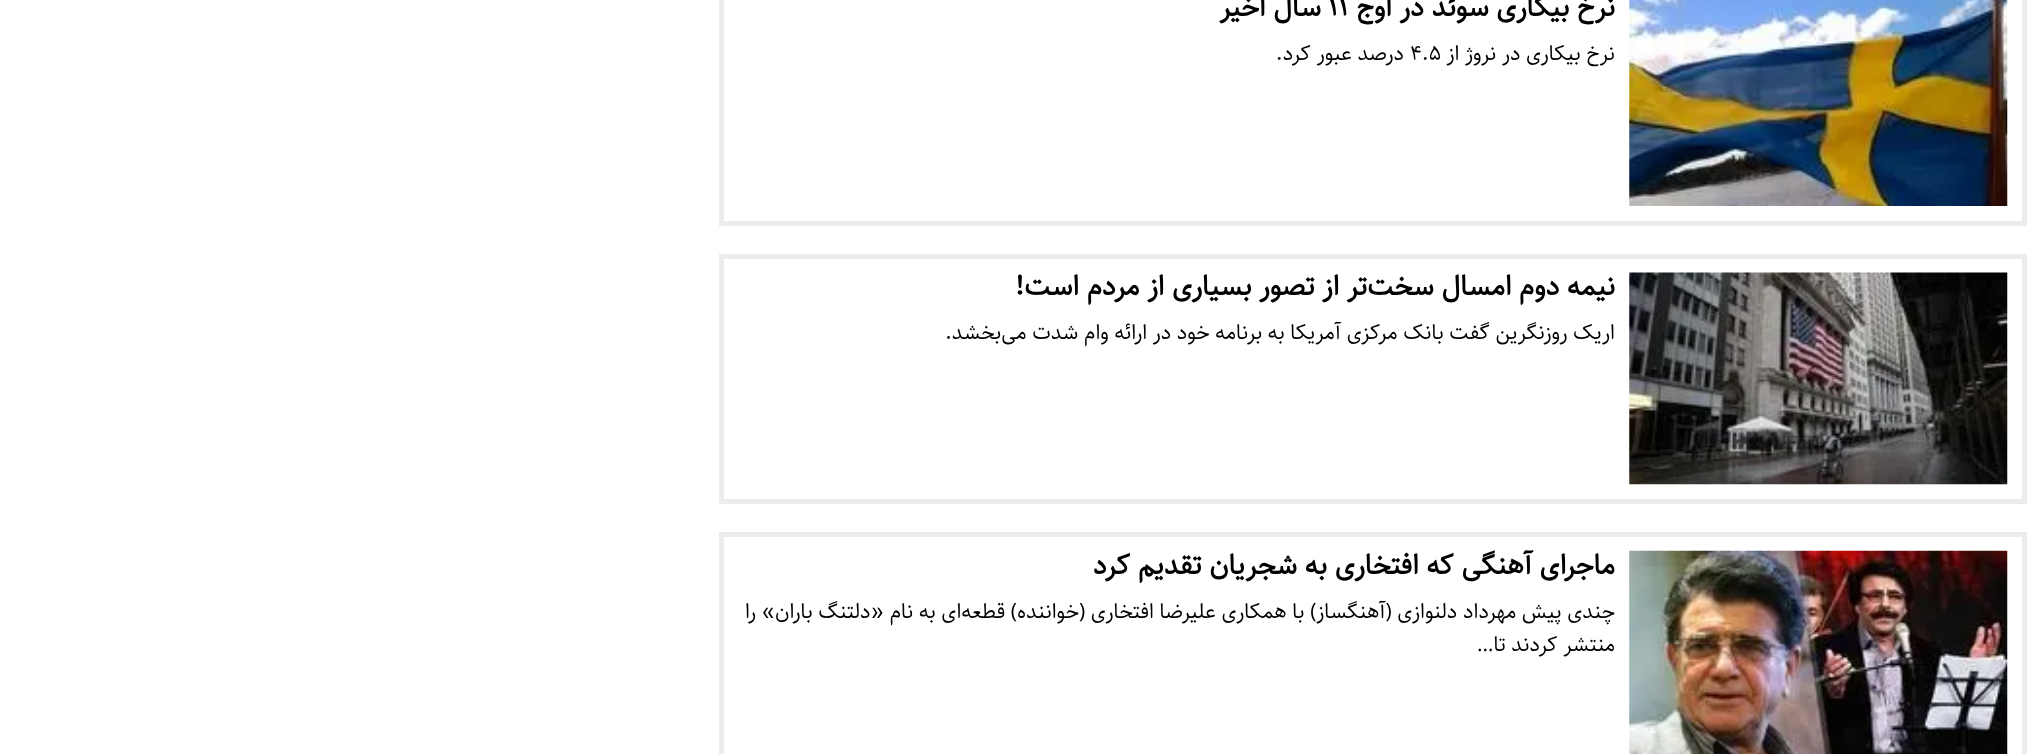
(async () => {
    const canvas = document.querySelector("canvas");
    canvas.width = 2040;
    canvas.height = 754;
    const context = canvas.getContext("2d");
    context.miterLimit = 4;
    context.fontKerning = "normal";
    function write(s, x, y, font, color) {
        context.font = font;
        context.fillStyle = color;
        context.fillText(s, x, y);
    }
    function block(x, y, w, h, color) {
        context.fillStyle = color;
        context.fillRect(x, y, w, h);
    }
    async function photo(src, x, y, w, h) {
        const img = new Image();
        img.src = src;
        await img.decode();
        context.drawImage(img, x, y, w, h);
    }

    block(0, 0, 2040, 754, "rgb(255, 255, 255)");
    context.strokeStyle = "rgb(236, 236, 236)";
    context.lineWidth = 5;
    context.strokeRect(721.5, -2.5, 1303, 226);
    await photo("media/1.png", 1629, 0, 379, 206);
    context.direction = "rtl";
    write("نرخ بیکاری سوئد در اوج", 1615, 16, "bold 28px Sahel", "rgb(0, 0, 0)");
    context.direction = "ltr";
    write("۱۱", 1328, 16, "bold 28px Sahel", "rgb(0, 0, 0)");
    context.direction = "rtl";
    write("سال اخیر", 1321, 16, "bold 28px Sahel", "rgb(0, 0, 0)");
    write("نرخ بیکاری در نروژ از", 1615, 60, "21px Sahel", "rgb(0, 0, 0)");
    context.direction = "ltr";
    write("۴.۵", 1410, 60, "21px Sahel", "rgb(0, 0, 0)");
    context.direction = "rtl";
    write("درصد عبور کرد.", 1404, 60, "21px Sahel", "rgb(0, 0, 0)");
    context.strokeRect(721.5, 256.5, 1303, 245);
    await photo("media/2.png", 1629, 272, 379, 213);
    write("نیمه دوم امسال سخت‌تر از تصور بسیاری از مردم است!", 1615, 295, "bold 28px Sahel", "rgb(0, 0, 0)");
    write("اریک روزنگرین گفت بانک مرکزی آمریکا به برنامه خود در ارائه وام شدت می‌بخشد.", 1615, 339, "21px Sahel", "rgb(0, 0, 0)");
    context.strokeRect(721.5, 534.5, 1303, 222);
    await photo("media/3.png", 1629, 550, 379, 204);
    write("ماجرای آهنگی که افتخاری به شجریان تقدیم کرد", 1615, 574, "bold 28px Sahel", "rgb(0, 0, 0)");
    write("چندی پیش مهرداد دلنوازی (آهنگساز) با همکاری علیرضا افتخاری (خواننده) قطعه‌ای به نام «دلتنگ باران» را", 1615, 618, "21px Sahel", "rgb(0, 0, 0)");
    write("منتشر کردند تا…", 1615, 651, "21px Sahel", "rgb(0, 0, 0)");
})();
